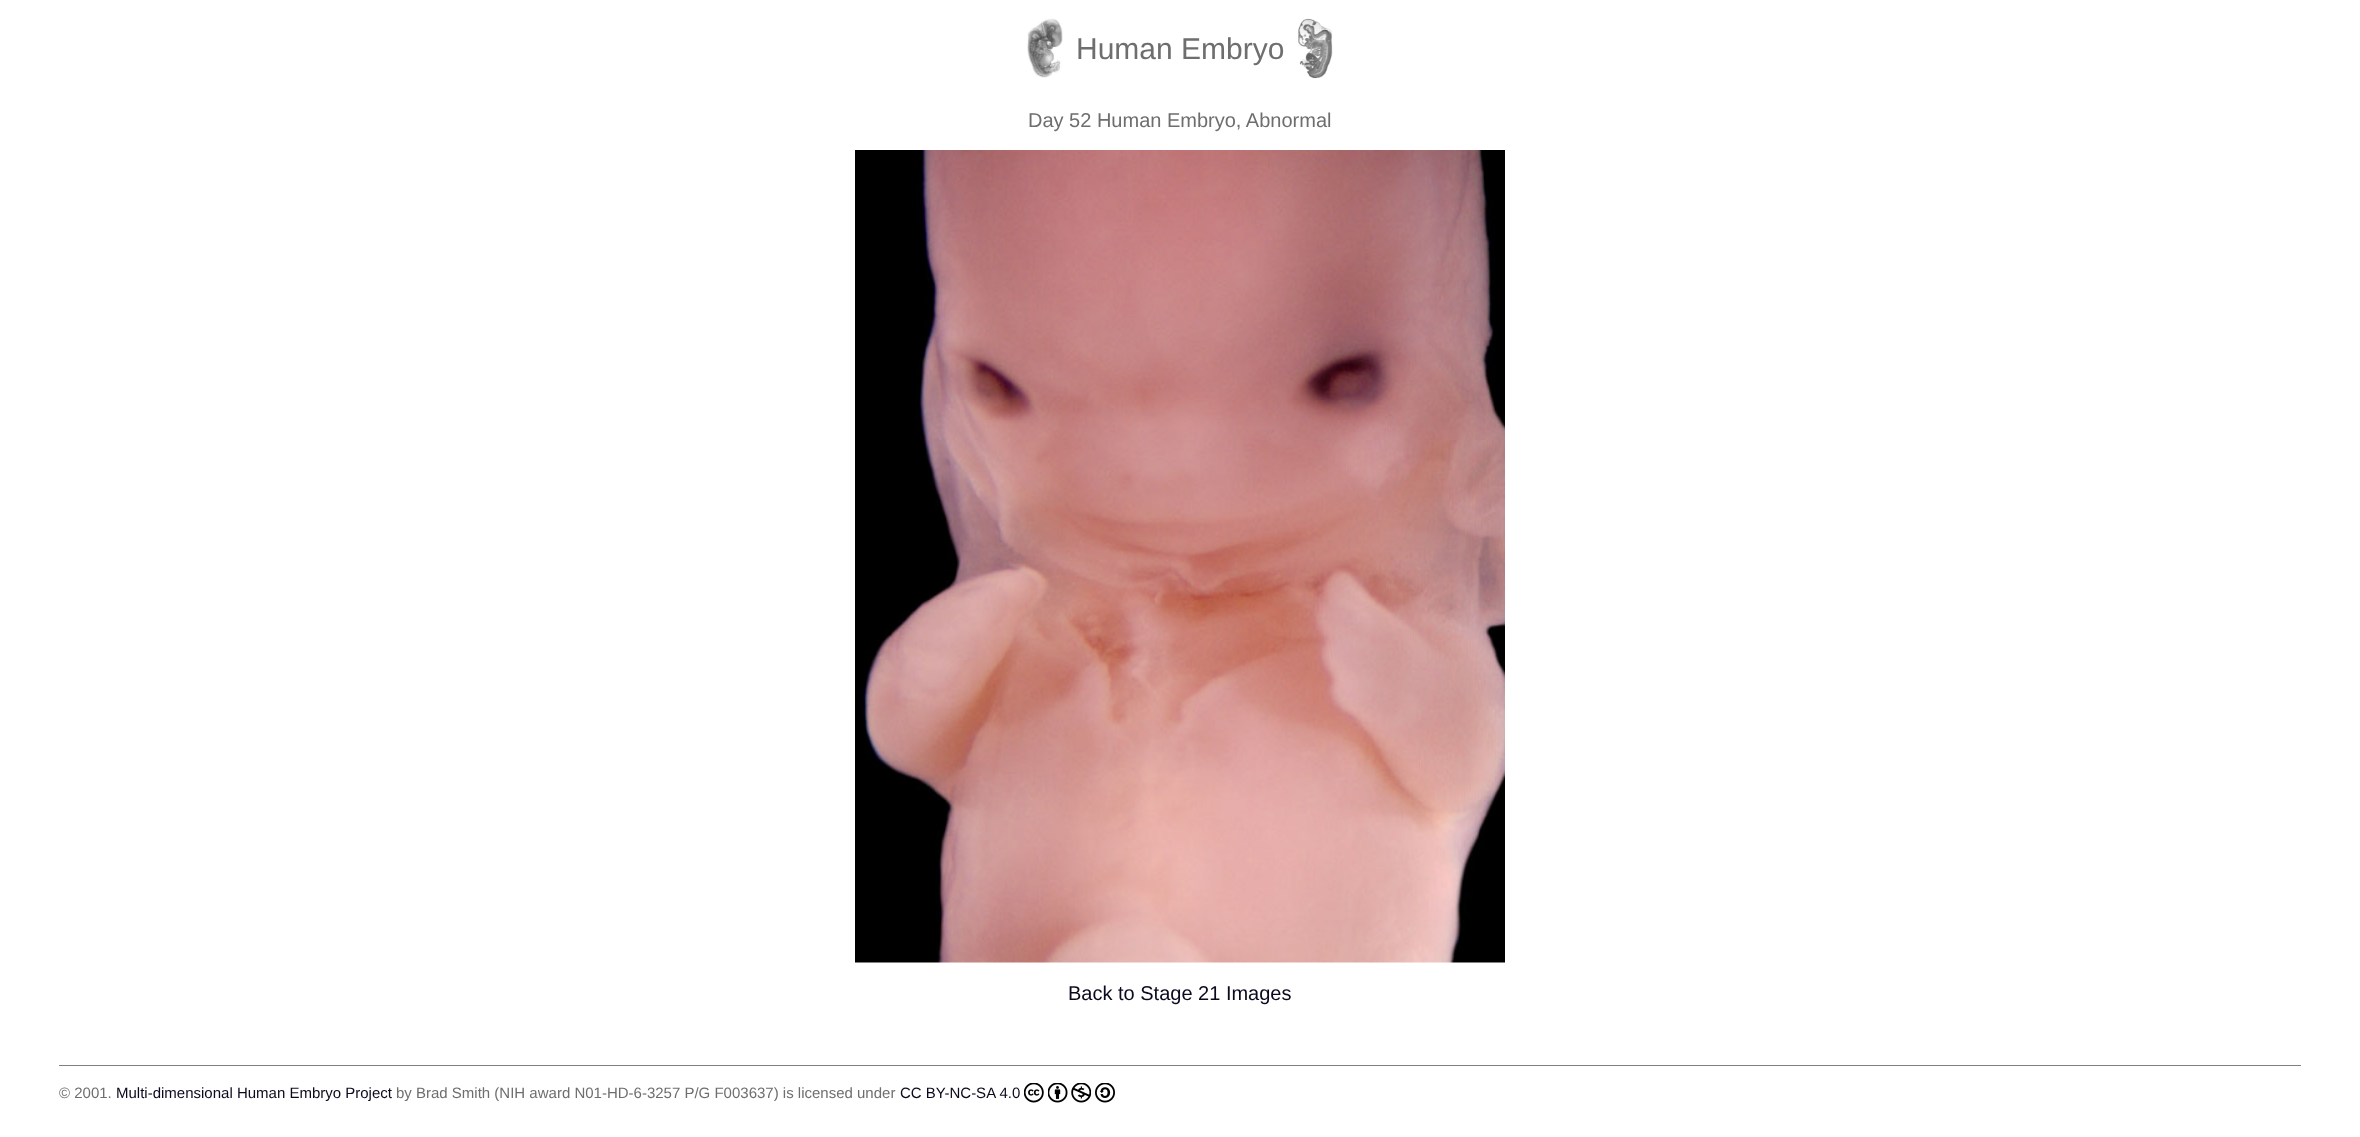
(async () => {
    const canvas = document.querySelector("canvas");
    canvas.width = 2360;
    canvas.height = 1137;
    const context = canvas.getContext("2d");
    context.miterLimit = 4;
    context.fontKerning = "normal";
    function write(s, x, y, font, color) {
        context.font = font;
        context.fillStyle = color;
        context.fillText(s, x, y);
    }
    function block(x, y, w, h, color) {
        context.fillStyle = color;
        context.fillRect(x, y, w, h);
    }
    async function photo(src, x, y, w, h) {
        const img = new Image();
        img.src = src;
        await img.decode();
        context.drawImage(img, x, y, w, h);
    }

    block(0, 0, 2360, 1137, "rgb(255, 255, 255)");
    await photo("media/1.png", 1027, 18, 36, 60);
    write("Human Embryo", 1076, 59, "30px Liberation Sans", "rgb(110, 110, 110)");
    await photo("media/2.png", 1298, 18, 35, 61);
    write("Day 52 Human Embryo, Abnormal", 1028, 127, "20px Liberation Sans", "rgb(110, 110, 110)");
    await photo("media/3.png", 855, 150, 650, 813);
    write("Back to Stage 21 Images", 1068, 1000, "20px Liberation Sans", "rgb(10, 10, 30)");
    block(59, 1065, 2242, 1, "rgb(128, 128, 128)");
    write("© 2001.", 59, 1098, "15px Liberation Sans", "rgb(110, 110, 110)");
    write("Multi-dimensional Human Embryo Project", 116, 1098, "15px Liberation Sans", "rgb(10, 10, 30)");
    write("by Brad Smith (NIH award N01-HD-6-3257 P/G F003637) is licensed under", 396, 1098, "15px Liberation Sans", "rgb(110, 110, 110)");
    write("CC BY-NC-SA 4.0", 900, 1098, "15px Liberation Sans", "rgb(10, 10, 30)");
    await photo("media/4.png", 1024, 1083, 20, 20);
    await photo("media/5.png", 1048, 1083, 20, 20);
    await photo("media/6.png", 1071, 1083, 20, 20);
    await photo("media/7.png", 1095, 1083, 20, 20);
})();
